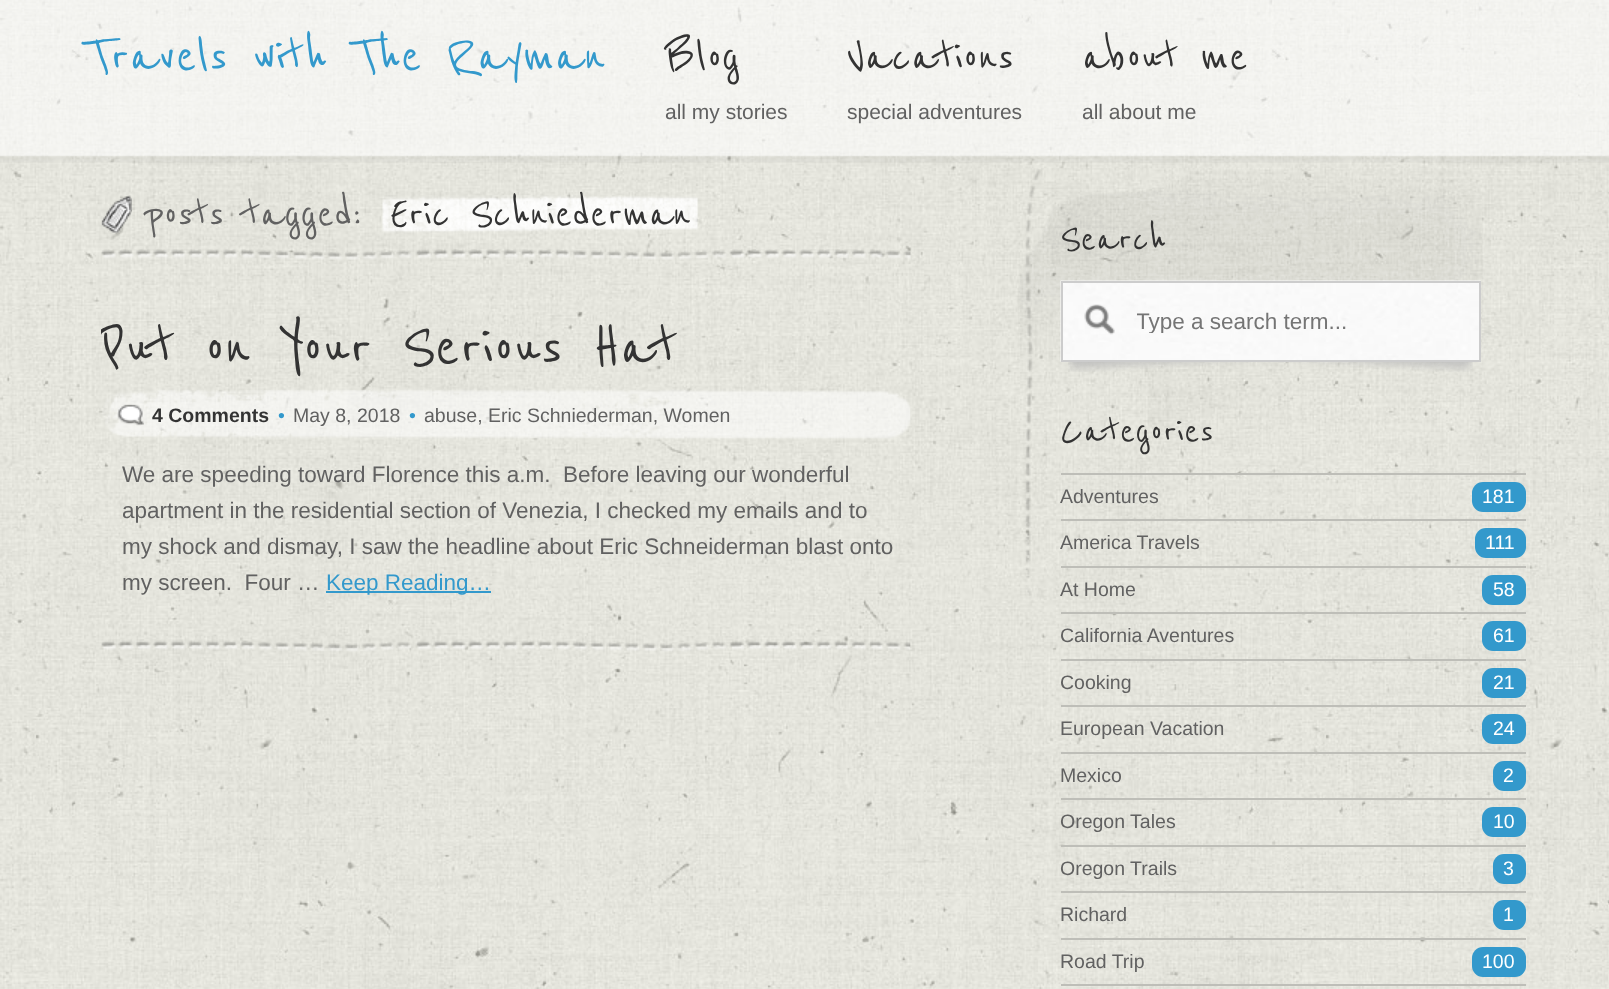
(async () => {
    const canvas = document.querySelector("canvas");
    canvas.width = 1609;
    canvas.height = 989;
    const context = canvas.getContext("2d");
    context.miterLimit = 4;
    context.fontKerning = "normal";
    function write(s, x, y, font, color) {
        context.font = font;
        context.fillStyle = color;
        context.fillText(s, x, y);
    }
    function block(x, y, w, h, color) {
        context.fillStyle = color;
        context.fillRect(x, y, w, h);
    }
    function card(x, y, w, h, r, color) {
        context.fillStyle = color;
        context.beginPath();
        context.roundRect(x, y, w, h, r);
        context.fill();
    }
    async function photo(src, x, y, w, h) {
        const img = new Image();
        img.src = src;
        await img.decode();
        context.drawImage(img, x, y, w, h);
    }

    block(0, 0, 1609, 989, "rgb(255, 255, 255)");
    await photo("media/1.png", 0, 0, 1609, 989);
    await photo("media/2.png", 0, 0, 1609, 163);
    write("Travels with The Rayman", 85, 72, "500 60px Reenie Beanie", "rgb(51, 153, 204)");
    write("Blog", 665, 71, "500 54px Reenie Beanie", "rgb(51, 51, 51)");
    write("all my stories", 665, 119, "21px Liberation Sans", "rgb(97, 97, 97)");
    write("Vacations", 847, 71, "500 54px Reenie Beanie", "rgb(51, 51, 51)");
    write("special adventures", 847, 119, "21px Liberation Sans", "rgb(97, 97, 97)");
    write("about me", 1082, 71, "500 54px Reenie Beanie", "rgb(51, 51, 51)");
    write("all about me", 1082, 119, "21px Liberation Sans", "rgb(97, 97, 97)");
    await photo("media/3.png", 1018, 169, 465, 427);
    await photo("media/4.png", 101, 249, 810, 11);
    await photo("media/5.png", 101, 195, 31, 39);
    write("posts tagged:", 145, 227, "500 49.5px Reenie Beanie", "rgb(97, 97, 97)");
    await photo("media/6.png", 382, 195, 316, 38);
    write("Eric Schniederman", 390, 227, "500 49.5px Reenie Beanie", "rgb(51, 51, 51)");
    context.save();
    context.beginPath();
    context.rect(101, 306, 810, 369);
    context.clip();
    write("Put on Your Serious Hat", 100, 366, "500 72px Reenie Beanie", "rgb(51, 51, 51)");
    context.restore();
    await photo("media/7.png", 102, 389, 809, 50);
    await photo("media/8.png", 117, 404, 27, 22);
    write("4 Comments", 152, 422, "bold 19.5px Liberation Sans", "rgb(51, 51, 51)");
    write("•", 278, 422, "19.5px Liberation Sans", "rgb(51, 153, 204)");
    write("May 8, 2018", 293, 422, "19.5px Liberation Sans", "rgb(97, 97, 97)");
    write("•", 409, 422, "19.5px Liberation Sans", "rgb(51, 153, 204)");
    write("abuse, Eric Schniederman, Women", 424, 422, "19.5px Liberation Sans", "rgb(97, 97, 97)");
    await photo("media/9.png", 101, 640, 810, 12);
    write("We are speeding toward Florence this a.m.  Before leaving our wonderful", 122, 482, "22.5px Liberation Sans", "rgb(97, 97, 97)");
    write("apartment in the residential section of Venezia, I checked my emails and to", 122, 518, "22.5px Liberation Sans", "rgb(97, 97, 97)");
    write("my shock and dismay, I saw the headline about Eric Schneiderman blast onto", 122, 554, "22.5px Liberation Sans", "rgb(97, 97, 97)");
    write("my screen.  Four …", 122, 590, "22.5px Liberation Sans", "rgb(97, 97, 97)");
    block(326, 591, 165, 2, "rgb(51, 153, 204)");
    write("Keep Reading…", 326, 590, "22.5px Liberation Sans", "rgb(51, 153, 204)");
    write("Search", 1060, 251, "500 45px Reenie Beanie", "rgb(51, 51, 51)");
    await photo("media/10.png", 1068, 362, 405, 10);
    await photo("media/11.png", 1060, 280, 421, 82);
    context.strokeStyle = "rgb(204, 204, 204)";
    context.lineWidth = 2;
    context.strokeRect(1062, 282, 418, 79);
    await photo("media/12.png", 1084, 304, 31, 31);
    context.save();
    context.beginPath();
    context.rect(1137, 308, 323, 25);
    context.clip();
    write("Type a search term...", 1136, 329, "22.5px Liberation Sans", "rgb(117, 117, 117)");
    context.restore();
    write("Categories", 1060, 443, "500 45px Reenie Beanie", "rgb(51, 51, 51)");
    block(1061, 473, 465, 2, "rgb(190, 190, 184)");
    block(1061, 519, 465, 2, "rgb(190, 190, 184)");
    write("Adventures", 1060, 503, "19.5px Liberation Sans", "rgb(97, 97, 97)");
    card(1472, 482, 54, 30, 11, "rgb(51, 153, 204)");
    write("181", 1482, 503, "19.5px Liberation Sans", "rgb(255, 255, 255)");
    block(1061, 566, 465, 2, "rgb(190, 190, 184)");
    write("America Travels", 1060, 549, "19.5px Liberation Sans", "rgb(97, 97, 97)");
    card(1475, 528, 51, 30, 11, "rgb(51, 153, 204)");
    write("111", 1485, 549, "19.5px Liberation Sans", "rgb(255, 255, 255)");
    block(1061, 612, 465, 2, "rgb(190, 190, 184)");
    write("At Home", 1060, 596, "19.5px Liberation Sans", "rgb(97, 97, 97)");
    card(1482, 575, 44, 30, 11, "rgb(51, 153, 204)");
    write("58", 1493, 596, "19.5px Liberation Sans", "rgb(255, 255, 255)");
    block(1061, 659, 465, 2, "rgb(190, 190, 184)");
    write("California Aventures", 1060, 642, "19.5px Liberation Sans", "rgb(97, 97, 97)");
    card(1482, 621, 44, 30, 11, "rgb(51, 153, 204)");
    write("61", 1493, 642, "19.5px Liberation Sans", "rgb(255, 255, 255)");
    block(1061, 705, 465, 2, "rgb(190, 190, 184)");
    write("Cooking", 1060, 689, "19.5px Liberation Sans", "rgb(97, 97, 97)");
    card(1482, 668, 44, 30, 11, "rgb(51, 153, 204)");
    write("21", 1493, 689, "19.5px Liberation Sans", "rgb(255, 255, 255)");
    block(1061, 752, 465, 2, "rgb(190, 190, 184)");
    write("European Vacation", 1060, 735, "19.5px Liberation Sans", "rgb(97, 97, 97)");
    card(1482, 714, 44, 30, 11, "rgb(51, 153, 204)");
    write("24", 1493, 735, "19.5px Liberation Sans", "rgb(255, 255, 255)");
    block(1061, 798, 465, 2, "rgb(190, 190, 184)");
    write("Mexico", 1060, 782, "19.5px Liberation Sans", "rgb(97, 97, 97)");
    card(1493, 761, 33, 30, 11, "rgb(51, 153, 204)");
    write("2", 1503, 782, "19.5px Liberation Sans", "rgb(255, 255, 255)");
    block(1061, 845, 465, 2, "rgb(190, 190, 184)");
    write("Oregon Tales", 1060, 828, "19.5px Liberation Sans", "rgb(97, 97, 97)");
    card(1482, 807, 44, 30, 11, "rgb(51, 153, 204)");
    write("10", 1493, 828, "19.5px Liberation Sans", "rgb(255, 255, 255)");
    block(1061, 891, 465, 2, "rgb(190, 190, 184)");
    write("Oregon Trails", 1060, 875, "19.5px Liberation Sans", "rgb(97, 97, 97)");
    card(1493, 854, 33, 30, 11, "rgb(51, 153, 204)");
    write("3", 1503, 875, "19.5px Liberation Sans", "rgb(255, 255, 255)");
    block(1061, 938, 465, 2, "rgb(190, 190, 184)");
    write("Richard", 1060, 921, "19.5px Liberation Sans", "rgb(97, 97, 97)");
    card(1493, 900, 33, 30, 11, "rgb(51, 153, 204)");
    write("1", 1503, 921, "19.5px Liberation Sans", "rgb(255, 255, 255)");
    block(1061, 984, 465, 2, "rgb(190, 190, 184)");
    write("Road Trip", 1060, 968, "19.5px Liberation Sans", "rgb(97, 97, 97)");
    card(1472, 947, 54, 30, 11, "rgb(51, 153, 204)");
    write("100", 1482, 968, "19.5px Liberation Sans", "rgb(255, 255, 255)");
})();
